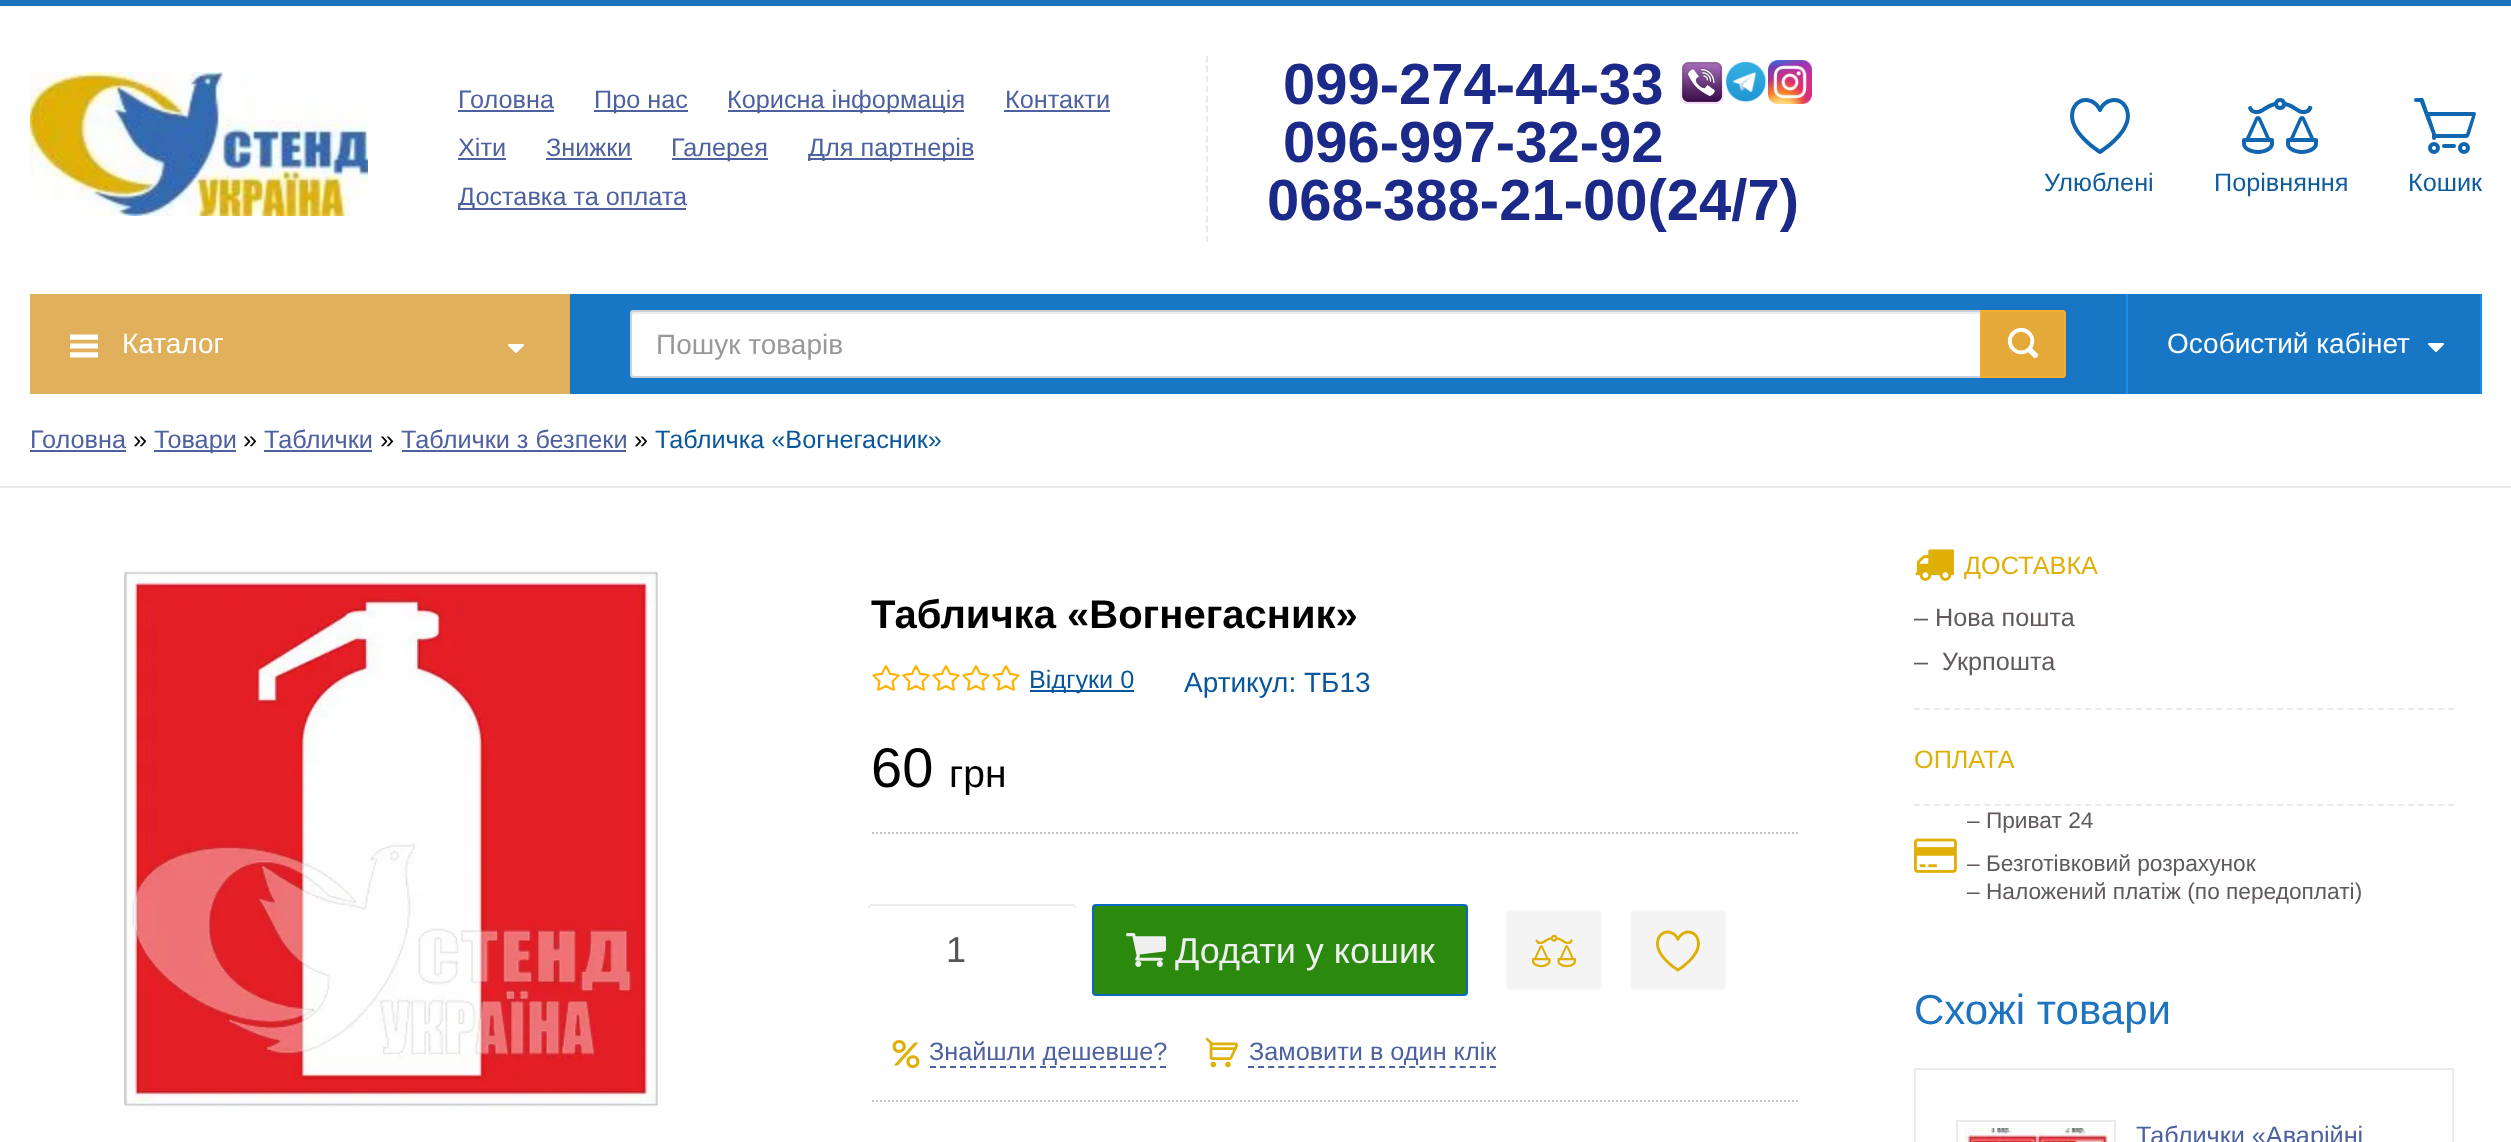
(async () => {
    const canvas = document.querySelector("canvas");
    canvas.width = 2511;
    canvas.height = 1142;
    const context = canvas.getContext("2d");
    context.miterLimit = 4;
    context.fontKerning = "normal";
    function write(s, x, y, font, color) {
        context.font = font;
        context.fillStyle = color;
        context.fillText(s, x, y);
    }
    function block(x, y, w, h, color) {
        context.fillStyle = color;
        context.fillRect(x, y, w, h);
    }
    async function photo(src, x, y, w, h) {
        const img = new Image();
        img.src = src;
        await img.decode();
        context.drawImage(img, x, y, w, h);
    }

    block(0, 0, 2511, 1142, "rgb(255, 255, 255)");
    block(0, 0, 2511, 6, "rgb(30, 115, 190)");
    await photo("media/1.png", 30, 72, 338, 144);
    write("Головна", 458, 108, "25.25px Liberation Sans", "rgb(77, 96, 160)");
    block(458, 110, 96, 2, "rgb(77, 96, 160)");
    block(594, 110, 94, 2, "rgb(77, 96, 160)");
    write("Про нас", 594, 108, "25.25px Liberation Sans", "rgb(77, 96, 160)");
    block(728, 110, 236, 2, "rgb(77, 96, 160)");
    write("Корисна інформація", 727, 108, "25.25px Liberation Sans", "rgb(77, 96, 160)");
    write("Контакти", 1005, 108, "25.25px Liberation Sans", "rgb(77, 96, 160)");
    block(1004, 110, 106, 2, "rgb(77, 96, 160)");
    write("Хіти", 458, 156, "25.25px Liberation Sans", "rgb(77, 96, 160)");
    block(458, 158, 48, 2, "rgb(77, 96, 160)");
    write("Знижки", 546, 156, "25.25px Liberation Sans", "rgb(77, 96, 160)");
    block(546, 158, 86, 2, "rgb(77, 96, 160)");
    block(672, 158, 96, 2, "rgb(77, 96, 160)");
    write("Галерея", 671, 156, "25.25px Liberation Sans", "rgb(77, 96, 160)");
    block(808, 158, 166, 2, "rgb(77, 96, 160)");
    write("Для партнерів", 808, 156, "25.25px Liberation Sans", "rgb(77, 96, 160)");
    block(458, 208, 228, 2, "rgb(77, 96, 160)");
    write("Доставка та оплата", 458, 205, "25.25px Liberation Sans", "rgb(77, 96, 160)");
    context.beginPath();
    context.moveTo(1207, 56);
    context.lineTo(1207, 242);
    context.strokeStyle = "rgb(234, 234, 234)";
    context.lineWidth = 2;
    context.setLineDash([6, 4]);
    context.stroke();
    write("099-274-44-33", 1283, 104, "bold 58px Liberation Sans", "rgb(27, 41, 136)");
    await photo("media/2.png", 1680, 61, 44, 43);
    await photo("media/3.png", 1725, 61, 42, 42);
    await photo("media/4.png", 1768, 60, 44, 44);
    write("096-997-32-92", 1283, 162, "bold 58px Liberation Sans", "rgb(27, 41, 136)");
    write("068-388-21-00(24/7)", 1267, 220, "bold 58px Liberation Sans", "rgb(27, 41, 136)");
    await photo("media/5.png", 2070, 98, 60, 56);
    write("Улюблені", 2044, 191, "25.25px Liberation Sans", "rgb(14, 91, 158)");
    await photo("media/6.png", 2242, 98, 76, 56);
    write("Порівняння", 2214, 191, "25.25px Liberation Sans", "rgb(14, 91, 158)");
    await photo("media/7.png", 2414, 98, 62, 56);
    write("Кошик", 2408, 191, "25.25px Liberation Sans", "rgb(14, 91, 158)");
    block(570, 294, 1910, 100, "rgb(23, 119, 197)");
    block(30, 294, 540, 100, "rgb(225, 176, 92)");
    await photo("media/8.png", 70, 334, 28, 24);
    write("Каталог", 122, 353, "28px Liberation Sans", "rgb(255, 255, 255)");
    await photo("media/9.png", 508, 344, 16, 9);
    context.beginPath();
    context.roundRect(630, 310, 1352, 68, [4, 0, 0, 4]);
    context.fill();
    context.fillStyle = "rgb(236, 236, 236)";
    context.beginPath();
    context.moveTo(634, 314);
    context.lineTo(1980, 314);
    context.lineTo(1980, 312);
    context.lineTo(634, 312);
    context.bezierCurveTo(632, 312, 632, 314, 632, 316);
    context.bezierCurveTo(632, 315, 633, 314, 634, 314);
    context.closePath();
    context.fill();
    context.beginPath();
    context.roundRect(631, 311, 1350, 66, [3, 0, 0, 3]);
    context.strokeStyle = "rgb(200, 207, 217)";
    context.setLineDash([]);
    context.stroke();
    write("Пошук товарів", 656, 354, "28px Liberation Sans", "rgb(153, 153, 153)");
    context.fillStyle = "rgba(246, 175, 44, 0.92)";
    context.beginPath();
    context.roundRect(1980, 310, 86, 68, [0, 4, 4, 0]);
    context.fill();
    context.beginPath();
    context.roundRect(1981, 311, 84, 66, [0, 3, 3, 0]);
    context.strokeStyle = "rgba(246, 175, 44, 0.92)";
    context.stroke();
    await photo("media/10.png", 2007, 328, 32, 30);
    block(2480, 294, 2, 100, "rgb(22, 141, 239)");
    block(2126, 294, 2, 100, "rgb(22, 141, 239)");
    write("Особистий кабінет", 2167, 353, "28px Liberation Sans", "rgb(255, 255, 255)");
    await photo("media/11.png", 2428, 343, 16, 9);
    block(0, 486, 2511, 2, "rgb(234, 234, 234)");
    write("Головна", 30, 448, "25.25px Liberation Sans", "rgb(77, 96, 160)");
    block(30, 450, 96, 2, "rgb(77, 96, 160)");
    write("»", 133, 448, "25.25px Liberation Sans", "rgb(0, 0, 0)");
    block(154, 450, 82, 2, "rgb(77, 96, 160)");
    write("Товари", 154, 448, "25.25px Liberation Sans", "rgb(77, 96, 160)");
    write("»", 243, 448, "25.25px Liberation Sans", "rgb(0, 0, 0)");
    write("Таблички", 264, 448, "25.25px Liberation Sans", "rgb(77, 96, 160)");
    block(264, 450, 108, 2, "rgb(77, 96, 160)");
    write("»", 380, 448, "25.25px Liberation Sans", "rgb(0, 0, 0)");
    write("Таблички з безпеки", 401, 448, "25.25px Liberation Sans", "rgb(77, 96, 160)");
    block(402, 450, 224, 2, "rgb(77, 96, 160)");
    write("»", 634, 448, "25.25px Liberation Sans", "rgb(0, 0, 0)");
    write("Табличка «Вогнегасник»", 655, 448, "25.25px Liberation Sans", "rgb(8, 86, 155)");
    await photo("media/12.png", 123, 569, 535, 545);
    write("Табличка «Вогнегасник»", 871, 628, "bold 40px Liberation Sans", "rgb(0, 0, 0)");
    await photo("media/13.png", 872, 664, 28, 27);
    await photo("media/14.png", 902, 664, 28, 27);
    await photo("media/14.png", 932, 664, 28, 27);
    await photo("media/14.png", 962, 664, 28, 27);
    await photo("media/15.png", 992, 664, 28, 27);
    block(1030, 690, 104, 2, "rgb(8, 86, 155)");
    write("Відгуки 0", 1029, 688, "25.25px Liberation Sans", "rgb(8, 86, 155)");
    write("Артикул: ТБ13", 1184, 692, "28px Liberation Sans", "rgb(8, 86, 155)");
    write("60", 871, 787, "56px Liberation Sans", "rgb(0, 0, 0)");
    write("грн", 949, 787, "39px Liberation Sans", "rgb(0, 0, 0)");
    context.beginPath();
    context.moveTo(872, 833);
    context.lineTo(1798, 833);
    context.strokeStyle = "rgb(197, 197, 197)";
    context.setLineDash([2, 2]);
    context.stroke();
    context.fillStyle = "rgb(236, 236, 236)";
    context.beginPath();
    context.moveTo(872, 906);
    context.lineTo(1072, 906);
    context.bezierCurveTo(1074, 906, 1076, 908, 1076, 910);
    context.bezierCurveTo(1076, 907, 1076, 904, 1072, 904);
    context.lineTo(871, 904);
    context.bezierCurveTo(868, 905, 868, 907, 868, 910);
    context.bezierCurveTo(868, 908, 870, 906, 872, 906);
    context.closePath();
    context.fill();
    write("1", 946, 962, "36px Liberation Sans", "rgb(85, 85, 85)");
    context.fillStyle = "rgb(43, 138, 14)";
    context.beginPath();
    context.roundRect(1093, 905, 374, 90, 3);
    context.fill();
    context.strokeStyle = "rgb(8, 105, 189)";
    context.setLineDash([]);
    context.stroke();
    await photo("media/16.png", 1126, 933, 40, 34);
    write("Додати у кошик", 1175, 963, "36px Liberation Sans", "rgb(239, 239, 240)");
    context.fillStyle = "rgb(244, 244, 245)";
    context.beginPath();
    context.roundRect(1507, 911, 94, 78, 3);
    context.fill();
    context.strokeStyle = "rgb(246, 247, 247)";
    context.stroke();
    await photo("media/17.png", 1532, 934, 44, 34);
    context.beginPath();
    context.roundRect(1631, 911, 94, 78, 3);
    context.fill();
    context.stroke();
    await photo("media/18.png", 1656, 930, 44, 42);
    await photo("media/19.png", 892, 1040, 28, 28);
    context.beginPath();
    context.moveTo(930, 1067);
    context.lineTo(1166, 1067);
    context.strokeStyle = "rgb(77, 96, 160)";
    context.setLineDash([6, 4]);
    context.stroke();
    write("Знайшли дешевше?", 929, 1060, "25.25px Liberation Sans", "rgb(77, 96, 160)");
    await photo("media/20.png", 1206, 1037, 32, 31);
    context.beginPath();
    context.moveTo(1248, 1067);
    context.lineTo(1496, 1067);
    context.setLineDash([6, 4.08]);
    context.stroke();
    write("Замовити в один клік", 1249, 1060, "25.25px Liberation Sans", "rgb(77, 96, 160)");
    context.beginPath();
    context.moveTo(872, 1101);
    context.lineTo(1798, 1101);
    context.strokeStyle = "rgb(197, 197, 197)";
    context.setLineDash([2, 2]);
    context.stroke();
    context.beginPath();
    context.moveTo(1914, 709);
    context.lineTo(2454, 709);
    context.strokeStyle = "rgb(234, 234, 234)";
    context.setLineDash([6, 4.08]);
    context.stroke();
    await photo("media/21.png", 1915, 549, 39, 32);
    write("ДОСТАВКА", 1964, 574, "25.25px Liberation Sans", "rgb(223, 176, 7)");
    write("– Нова пошта", 1914, 626, "25.25px Liberation Sans", "rgb(98, 90, 90)");
    write("–  Укрпошта", 1914, 670, "25.25px Liberation Sans", "rgb(98, 90, 90)");
    context.beginPath();
    context.moveTo(1914, 805);
    context.lineTo(2454, 805);
    context.stroke();
    write("ОПЛАТА", 1914, 768, "25.25px Liberation Sans", "rgb(223, 176, 7)");
    await photo("media/22.png", 1914, 838, 43, 35);
    write("– Приват 24", 1967, 828, "22.7px Liberation Sans", "rgb(98, 90, 90)");
    write("– Безготівковий розрахунок", 1967, 871, "22.7px Liberation Sans", "rgb(98, 90, 90)");
    write("– Наложений платіж (по передоплаті)", 1967, 899, "22.7px Liberation Sans", "rgb(98, 90, 90)");
    write("Схожі товари", 1914, 1024, "42px Liberation Sans", "rgb(30, 115, 190)");
    context.setLineDash([]);
    context.strokeRect(1915, 1069, 538, 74);
    context.strokeRect(1957, 1121, 158, 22);
    await photo("media/23.png", 1964, 1128, 144, 14);
    write("Таблички «Аварійні", 2136, 1144, "25.25px Liberation Sans", "rgb(77, 96, 160)");
})();
